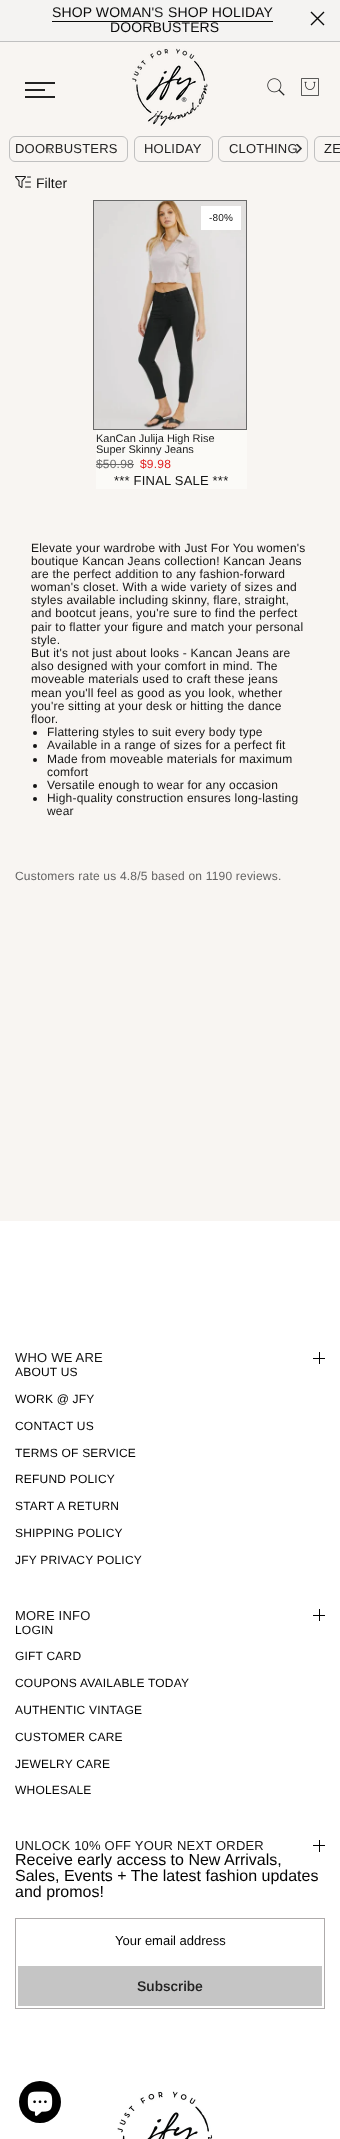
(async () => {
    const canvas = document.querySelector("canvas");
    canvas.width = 340;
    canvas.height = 2139;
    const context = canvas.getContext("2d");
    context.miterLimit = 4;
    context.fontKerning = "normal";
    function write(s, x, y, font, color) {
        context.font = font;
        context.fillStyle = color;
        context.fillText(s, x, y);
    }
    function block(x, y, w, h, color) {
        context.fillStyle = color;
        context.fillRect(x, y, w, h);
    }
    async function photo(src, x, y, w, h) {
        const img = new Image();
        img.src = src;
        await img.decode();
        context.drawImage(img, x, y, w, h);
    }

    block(0, 0, 340, 2139, "rgb(248, 245, 242)");
    block(0, 41, 340, 1, "rgb(192, 192, 192)");
    block(0, 0, 340, 41, "rgb(244, 243, 242)");
    context.letterSpacing = "0.1px";
    write("SHOP WOMAN'", 52, 17, "14px Arimo", "rgb(10, 10, 10)");
    block(52, 21, 102, 1, "rgb(10, 10, 10)");
    write("S", 154, 17, "14px Arimo", "rgb(34, 34, 34)");
    write("SHOP HOLIDAY", 168, 17, "14px Arimo", "rgb(10, 10, 10)");
    block(168, 21, 105, 1, "rgb(10, 10, 10)");
    write("DOORBUSTERS", 110, 32, "14px Arimo", "rgb(10, 10, 10)");
    context.beginPath();
    context.moveTo(324, 12);
    context.lineTo(311, 25);
    context.moveTo(324, 25);
    context.lineTo(311, 12);
    context.strokeStyle = "rgb(10, 10, 10)";
    context.lineWidth = 1.4;
    context.stroke();
    block(25, 82, 30, 2, "rgb(34, 34, 34)");
    block(25, 89, 20, 2, "rgb(34, 34, 34)");
    block(25, 96, 30, 2, "rgb(34, 34, 34)");
    await photo("media/1.png", 132, 48, 76, 78);
    await photo("media/2.png", 267, 78, 18, 18);
    await photo("media/3.png", 301, 78, 18, 18);
    context.beginPath();
    context.roundRect(9.5, 136.5, 118, 25, 5.5);
    context.strokeStyle = "rgb(192, 192, 192)";
    context.lineWidth = 1;
    context.stroke();
    context.letterSpacing = "0.2px";
    write("DOORBUSTERS", 15, 153, "13px Arimo", "rgb(34, 34, 34)");
    context.beginPath();
    context.roundRect(134.5, 136.5, 78, 25, 5.5);
    context.stroke();
    write("HOLIDAY", 144, 153, "13px Arimo", "rgb(34, 34, 34)");
    context.beginPath();
    context.roundRect(218.5, 136.5, 89, 25, 5.5);
    context.stroke();
    write("CLOTHING", 229, 153, "13px Arimo", "rgb(34, 34, 34)");
    context.beginPath();
    context.roundRect(314.5, 136.5, 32, 25, 5.5);
    context.stroke();
    write("ZE", 324, 153, "13px Arimo", "rgb(34, 34, 34)");
    await photo("media/4.png", 45, 144, 6, 10);
    await photo("media/5.png", 296, 144, 6, 10);
    await photo("media/6.png", 15, 176, 16, 12);
    context.letterSpacing = "0px";
    write("Filter", 36, 188, "14px Arimo", "rgb(20, 20, 20)");
    context.strokeStyle = "rgb(106, 106, 106)";
    context.strokeRect(93.5, 200.5, 153, 229);
    await photo("media/7.png", 94, 201, 152, 228);
    block(201, 206, 40, 24, "rgb(255, 255, 255)");
    context.letterSpacing = "0.2px";
    write("-80%", 209, 221, "10px Arimo", "rgb(20, 20, 20)");
    block(96, 430, 151, 59, "rgb(251, 250, 247)");
    context.letterSpacing = "0px";
    write("KanCan Julija High Rise", 96, 442, "11px Arimo", "rgb(34, 34, 34)");
    write("Super Skinny Jeans", 96, 453, "11px Arimo", "rgb(34, 34, 34)");
    context.letterSpacing = "0.2px";
    write("$50.98", 96, 468, "12px Arimo", "rgb(105, 105, 105)");
    block(96, 464, 38, 1, "rgb(105, 105, 105)");
    write("$9.98", 140, 468, "12px Arimo", "rgb(225, 31, 31)");
    write("*** FINAL SALE ***", 114, 485, "13px Arimo", "rgb(20, 20, 20)");
    write("Elevate your wardrobe with Just For You women's", 31, 552, "12px Arimo", "rgb(20, 20, 20)");
    write("boutique Kancan Jeans collection! Kancan Jeans", 31, 565, "12px Arimo", "rgb(20, 20, 20)");
    write("are the perfect addition to any fashion-forward", 31, 578, "12px Arimo", "rgb(20, 20, 20)");
    write("woman's closet. With a wide variety of sizes and", 31, 591, "12px Arimo", "rgb(20, 20, 20)");
    write("styles available including skinny, flare, straight,", 31, 604, "12px Arimo", "rgb(20, 20, 20)");
    write("and bootcut jeans, you're sure to find the perfect", 31, 617, "12px Arimo", "rgb(20, 20, 20)");
    write("pair to flatter your figure and match your personal", 31, 631, "12px Arimo", "rgb(20, 20, 20)");
    write("style.", 31, 644, "12px Arimo", "rgb(20, 20, 20)");
    write("But it's not just about looks - Kancan Jeans are", 31, 657, "12px Arimo", "rgb(20, 20, 20)");
    write("also designed with your comfort in mind. The", 31, 670, "12px Arimo", "rgb(20, 20, 20)");
    write("moveable materials used to craft these jeans", 31, 683, "12px Arimo", "rgb(20, 20, 20)");
    write("mean you'll feel as good as you look, whether", 31, 697, "12px Arimo", "rgb(20, 20, 20)");
    write("you're sitting at your desk or hitting the dance", 31, 710, "12px Arimo", "rgb(20, 20, 20)");
    write("floor.", 31, 723, "12px Arimo", "rgb(20, 20, 20)");
    context.beginPath();
    context.arc(35, 733, 2, 0, Math.PI * 2);
    context.fill();
    write("Flattering styles to suit every body type", 47, 736, "12px Arimo", "rgb(20, 20, 20)");
    context.beginPath();
    context.arc(35, 746, 2, 0, Math.PI * 2);
    context.fill();
    write("Available in a range of sizes for a perfect fit", 47, 749, "12px Arimo", "rgb(20, 20, 20)");
    context.beginPath();
    context.arc(35, 760, 2, 0, Math.PI * 2);
    context.fill();
    write("Made from moveable materials for maximum", 47, 763, "12px Arimo", "rgb(20, 20, 20)");
    write("comfort", 47, 776, "12px Arimo", "rgb(20, 20, 20)");
    context.beginPath();
    context.arc(35, 786, 2, 0, Math.PI * 2);
    context.fill();
    write("Versatile enough to wear for any occasion", 47, 789, "12px Arimo", "rgb(20, 20, 20)");
    context.beginPath();
    context.arc(35, 799, 2, 0, Math.PI * 2);
    context.fill();
    write("High-quality construction ensures long-lasting", 47, 802, "12px Arimo", "rgb(20, 20, 20)");
    write("wear", 47, 815, "12px Arimo", "rgb(20, 20, 20)");
    write("Customers rate us 4.8/5 based on 1190 reviews.", 15, 880, "12px Arimo", "rgb(99, 99, 99)");
    block(0, 1221, 340, 918, "rgb(255, 255, 255)");
    write("WHO WE ARE", 15, 1362, "13px Arimo", "rgb(20, 20, 20)");
    block(319, 1352, 1, 12, "rgb(0, 0, 0)");
    block(313, 1358, 12, 1, "rgb(0, 0, 0)");
    write("ABOUT US", 15, 1376, "12px Arimo", "rgb(2, 2, 2)");
    write("WORK @ JFY", 15, 1403, "12px Arimo", "rgb(2, 2, 2)");
    write("CONTACT US", 15, 1430, "12px Arimo", "rgb(2, 2, 2)");
    write("TERMS OF SERVICE", 15, 1457, "12px Arimo", "rgb(2, 2, 2)");
    write("REFUND POLICY", 15, 1483, "12px Arimo", "rgb(2, 2, 2)");
    write("START A RETURN", 15, 1510, "12px Arimo", "rgb(2, 2, 2)");
    write("SHIPPING POLICY", 15, 1537, "12px Arimo", "rgb(2, 2, 2)");
    write("JFY PRIVACY POLICY", 15, 1564, "12px Arimo", "rgb(2, 2, 2)");
    write("MORE INFO", 15, 1620, "13px Arimo", "rgb(20, 20, 20)");
    block(319, 1609, 1, 12, "rgb(0, 0, 0)");
    block(313, 1615, 12, 1, "rgb(0, 0, 0)");
    write("LOGIN", 15, 1634, "12px Arimo", "rgb(2, 2, 2)");
    write("GIFT CARD", 15, 1660, "12px Arimo", "rgb(2, 2, 2)");
    write("COUPONS AVAILABLE TODAY", 15, 1687, "12px Arimo", "rgb(2, 2, 2)");
    write("AUTHENTIC VINTAGE", 15, 1714, "12px Arimo", "rgb(2, 2, 2)");
    write("CUSTOMER CARE", 15, 1741, "12px Arimo", "rgb(2, 2, 2)");
    write("JEWELRY CARE", 15, 1768, "12px Arimo", "rgb(2, 2, 2)");
    write("WHOLESALE", 15, 1794, "12px Arimo", "rgb(2, 2, 2)");
    write("UNLOCK 10% OFF YOUR NEXT ORDER", 15, 1850, "13px Arimo", "rgb(20, 20, 20)");
    block(319, 1840, 1, 12, "rgb(0, 0, 0)");
    block(313, 1845, 12, 1, "rgb(0, 0, 0)");
    context.letterSpacing = "0px";
    write("Receive early access to New Arrivals,", 15, 1865, "16px Arimo", "rgb(2, 2, 2)");
    write("Sales, Events + The latest fashion updates", 15, 1881, "16px Arimo", "rgb(2, 2, 2)");
    write("and promos!", 15, 1897, "16px Arimo", "rgb(2, 2, 2)");
    context.strokeStyle = "rgb(174, 171, 171)";
    context.strokeRect(15.5, 1918.5, 309, 90);
    write("Your email address", 115, 1945, "13px Arimo", "rgb(2, 2, 2)");
    block(18, 1966, 304, 40, "rgb(197, 197, 197)");
    write("Subscribe", 137, 1991, "600 14px Arimo", "rgb(34, 34, 34)");
    await photo("media/8.png", 117, 2091, 96, 48);
    context.fillStyle = "rgb(0, 0, 0)";
    context.beginPath();
    context.arc(40, 2102, 21, 0, Math.PI * 2);
    context.fill();
    await photo("media/9.png", 27, 2091, 26, 25);
})();
